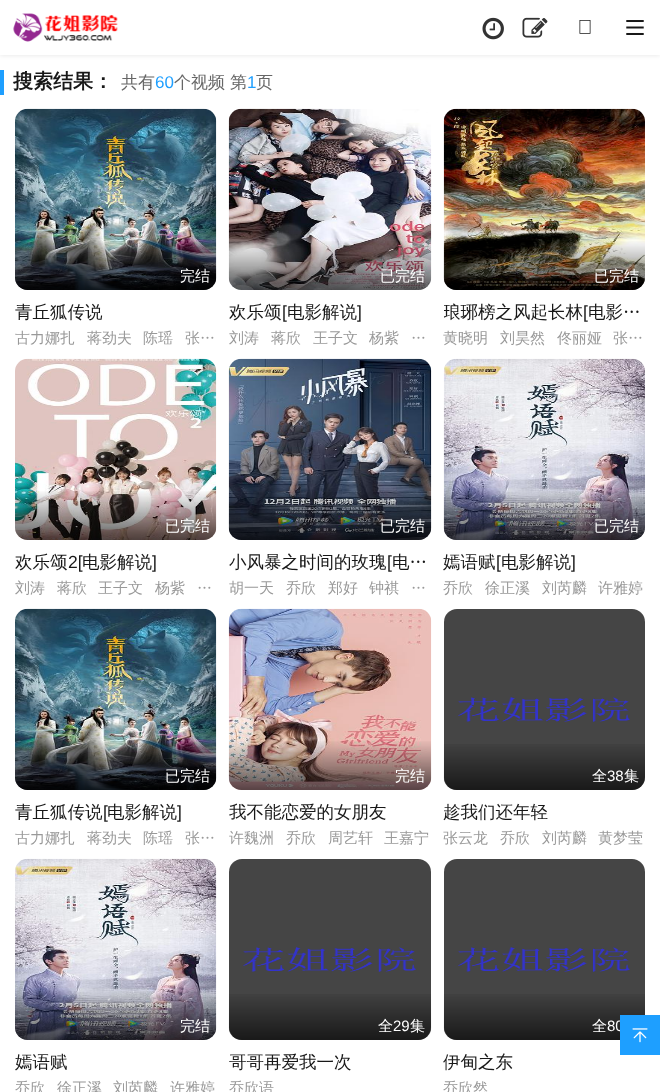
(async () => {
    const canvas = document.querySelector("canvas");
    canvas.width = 660;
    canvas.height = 1092;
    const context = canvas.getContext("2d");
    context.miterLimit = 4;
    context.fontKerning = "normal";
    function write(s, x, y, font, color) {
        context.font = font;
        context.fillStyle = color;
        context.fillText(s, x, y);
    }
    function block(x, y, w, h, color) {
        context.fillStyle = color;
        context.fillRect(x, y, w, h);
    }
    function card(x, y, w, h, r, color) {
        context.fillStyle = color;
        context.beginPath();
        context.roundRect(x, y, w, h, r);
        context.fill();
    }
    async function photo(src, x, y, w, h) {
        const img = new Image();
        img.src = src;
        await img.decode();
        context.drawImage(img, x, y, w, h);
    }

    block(0, 0, 660, 1092, "rgb(255, 255, 255)");
    context.fillStyle = "rgba(0, 0, 0, 0.08)";
    context.filter = "blur(2px)";
    context.beginPath();
    context.rect(0, 1, 660, 55);
    context.fill();
    context.filter = "none";
    block(0, 0, 660, 55, "rgb(255, 255, 255)");
    await photo("media/1.png", 13, 13, 105, 29);
    await photo("media/2.png", 482, 17, 22, 23);
    await photo("media/3.png", 522, 17, 26, 21);
    await photo("media/4.png", 579, 20, 12, 14);
    await photo("media/5.png", 626, 20, 18, 15);
    block(0, 70, 4, 25, "rgb(30, 159, 255)");
    write("搜索结果：", 13, 88, "bold 20px WenQuanYi Zen Hei", "rgb(24, 24, 24)");
    write("共有", 121, 88, "500 17px WenQuanYi Zen Hei", "rgb(102, 102, 102)");
    write("60", 155, 88, "17px Liberation Sans", "rgb(30, 159, 255)");
    write("个视频 第", 174, 88, "500 17px WenQuanYi Zen Hei", "rgb(102, 102, 102)");
    write("1", 247, 88, "17px Liberation Sans", "rgb(30, 159, 255)");
    write("页", 256, 88, "500 17px WenQuanYi Zen Hei", "rgb(102, 102, 102)");
    await photo("media/6.png", 15, 108, 202, 182);
    await photo("media/7.png", 15, 241, 202, 49);
    write("完结", 180, 281, "500 15px WenQuanYi Zen Hei", "rgb(255, 255, 255)");
    write("青丘狐传说", 15, 318, "500 17.5px WenQuanYi Zen Hei", "rgb(24, 24, 24)");
    write("古力娜扎", 15, 343, "500 15px WenQuanYi Zen Hei", "rgb(153, 153, 153)");
    write("蒋劲夫", 87, 343, "500 15px WenQuanYi Zen Hei", "rgb(153, 153, 153)");
    write("陈瑶", 143, 343, "500 15px WenQuanYi Zen Hei", "rgb(153, 153, 153)");
    write("张…", 185, 343, "500 15px WenQuanYi Zen Hei", "rgb(153, 153, 153)");
    await photo("media/8.png", 228, 108, 204, 182);
    await photo("media/9.png", 228, 241, 204, 49);
    write("已完结", 380, 281, "500 15px WenQuanYi Zen Hei", "rgb(255, 255, 255)");
    write("欢乐颂", 229, 318, "500 17.5px WenQuanYi Zen Hei", "rgb(24, 24, 24)");
    write("[", 282, 318, "17.5px Liberation Sans", "rgb(24, 24, 24)");
    write("电影解说", 287, 318, "500 17.5px WenQuanYi Zen Hei", "rgb(24, 24, 24)");
    write("]", 357, 318, "17.5px Liberation Sans", "rgb(24, 24, 24)");
    write("刘涛", 229, 343, "500 15px WenQuanYi Zen Hei", "rgb(153, 153, 153)");
    write("蒋欣", 271, 343, "500 15px WenQuanYi Zen Hei", "rgb(153, 153, 153)");
    write("王子文", 313, 343, "500 15px WenQuanYi Zen Hei", "rgb(153, 153, 153)");
    write("杨紫", 369, 343, "500 15px WenQuanYi Zen Hei", "rgb(153, 153, 153)");
    write("…", 411, 343, "500 15px WenQuanYi Zen Hei", "rgb(153, 153, 153)");
    await photo("media/10.png", 443, 108, 202, 182);
    await photo("media/11.png", 443, 241, 202, 49);
    write("已完结", 594, 281, "500 15px WenQuanYi Zen Hei", "rgb(255, 255, 255)");
    context.save();
    context.beginPath();
    context.rect(444, 300, 201, 23);
    context.clip();
    write("琅琊榜之风起长林", 443, 318, "500 17.5px WenQuanYi Zen Hei", "rgb(24, 24, 24)");
    context.restore();
    write("[", 583, 318, "17.5px Liberation Sans", "rgb(24, 24, 24)");
    write("电影…", 588, 318, "500 17.5px WenQuanYi Zen Hei", "rgb(24, 24, 24)");
    write("黄晓明", 443, 343, "500 15px WenQuanYi Zen Hei", "rgb(153, 153, 153)");
    write("刘昊然", 500, 343, "500 15px WenQuanYi Zen Hei", "rgb(153, 153, 153)");
    write("佟丽娅", 557, 343, "500 15px WenQuanYi Zen Hei", "rgb(153, 153, 153)");
    write("张…", 613, 343, "500 15px WenQuanYi Zen Hei", "rgb(153, 153, 153)");
    await photo("media/12.png", 15, 358, 202, 182);
    await photo("media/13.png", 15, 491, 202, 49);
    write("已完结", 165, 531, "500 15px WenQuanYi Zen Hei", "rgb(255, 255, 255)");
    write("欢乐颂", 15, 568, "500 17.5px WenQuanYi Zen Hei", "rgb(24, 24, 24)");
    write("2[", 68, 568, "17.5px Liberation Sans", "rgb(24, 24, 24)");
    write("电影解说", 82, 568, "500 17.5px WenQuanYi Zen Hei", "rgb(24, 24, 24)");
    write("]", 152, 568, "17.5px Liberation Sans", "rgb(24, 24, 24)");
    write("刘涛", 15, 593, "500 15px WenQuanYi Zen Hei", "rgb(153, 153, 153)");
    write("蒋欣", 57, 593, "500 15px WenQuanYi Zen Hei", "rgb(153, 153, 153)");
    write("王子文", 98, 593, "500 15px WenQuanYi Zen Hei", "rgb(153, 153, 153)");
    write("杨紫", 155, 593, "500 15px WenQuanYi Zen Hei", "rgb(153, 153, 153)");
    write("…", 197, 593, "500 15px WenQuanYi Zen Hei", "rgb(153, 153, 153)");
    await photo("media/14.png", 228, 358, 204, 182);
    await photo("media/15.png", 228, 492, 204, 48);
    write("已完结", 380, 531, "500 15px WenQuanYi Zen Hei", "rgb(255, 255, 255)");
    write("小风暴之时间的玫瑰", 229, 568, "500 17.5px WenQuanYi Zen Hei", "rgb(24, 24, 24)");
    write("[", 387, 568, "17.5px Liberation Sans", "rgb(24, 24, 24)");
    write("电…", 392, 568, "500 17.5px WenQuanYi Zen Hei", "rgb(24, 24, 24)");
    write("胡一天", 229, 593, "500 15px WenQuanYi Zen Hei", "rgb(153, 153, 153)");
    write("乔欣", 286, 593, "500 15px WenQuanYi Zen Hei", "rgb(153, 153, 153)");
    write("郑好", 328, 593, "500 15px WenQuanYi Zen Hei", "rgb(153, 153, 153)");
    write("钟祺", 369, 593, "500 15px WenQuanYi Zen Hei", "rgb(153, 153, 153)");
    write("…", 411, 593, "500 15px WenQuanYi Zen Hei", "rgb(153, 153, 153)");
    await photo("media/16.png", 443, 358, 202, 182);
    await photo("media/17.png", 443, 491, 202, 49);
    write("已完结", 594, 531, "500 15px WenQuanYi Zen Hei", "rgb(255, 255, 255)");
    write("嫣语赋", 443, 568, "500 17.5px WenQuanYi Zen Hei", "rgb(24, 24, 24)");
    write("[", 496, 568, "17.5px Liberation Sans", "rgb(24, 24, 24)");
    write("电影解说", 501, 568, "500 17.5px WenQuanYi Zen Hei", "rgb(24, 24, 24)");
    write("]", 571, 568, "17.5px Liberation Sans", "rgb(24, 24, 24)");
    write("乔欣", 443, 593, "500 15px WenQuanYi Zen Hei", "rgb(153, 153, 153)");
    write("徐正溪", 485, 593, "500 15px WenQuanYi Zen Hei", "rgb(153, 153, 153)");
    write("刘芮麟", 542, 593, "500 15px WenQuanYi Zen Hei", "rgb(153, 153, 153)");
    write("许雅婷", 598, 593, "500 15px WenQuanYi Zen Hei", "rgb(153, 153, 153)");
    await photo("media/6.png", 15, 608, 202, 182);
    await photo("media/7.png", 15, 741, 202, 49);
    write("已完结", 165, 781, "500 15px WenQuanYi Zen Hei", "rgb(255, 255, 255)");
    write("青丘狐传说", 15, 818, "500 17.5px WenQuanYi Zen Hei", "rgb(24, 24, 24)");
    write("[", 103, 818, "17.5px Liberation Sans", "rgb(24, 24, 24)");
    write("电影解说", 107, 818, "500 17.5px WenQuanYi Zen Hei", "rgb(24, 24, 24)");
    write("]", 177, 818, "17.5px Liberation Sans", "rgb(24, 24, 24)");
    write("古力娜扎", 15, 843, "500 15px WenQuanYi Zen Hei", "rgb(153, 153, 153)");
    write("蒋劲夫", 87, 843, "500 15px WenQuanYi Zen Hei", "rgb(153, 153, 153)");
    write("陈瑶", 143, 843, "500 15px WenQuanYi Zen Hei", "rgb(153, 153, 153)");
    write("张…", 185, 843, "500 15px WenQuanYi Zen Hei", "rgb(153, 153, 153)");
    await photo("media/18.png", 228, 608, 204, 182);
    await photo("media/19.png", 228, 741, 204, 49);
    write("完结", 395, 781, "500 15px WenQuanYi Zen Hei", "rgb(255, 255, 255)");
    write("我不能恋爱的女朋友", 229, 818, "500 17.5px WenQuanYi Zen Hei", "rgb(24, 24, 24)");
    write("许魏洲", 229, 843, "500 15px WenQuanYi Zen Hei", "rgb(153, 153, 153)");
    write("乔欣", 286, 843, "500 15px WenQuanYi Zen Hei", "rgb(153, 153, 153)");
    write("周艺轩", 328, 843, "500 15px WenQuanYi Zen Hei", "rgb(153, 153, 153)");
    write("王嘉宁", 384, 843, "500 15px WenQuanYi Zen Hei", "rgb(153, 153, 153)");
    card(444, 609, 201, 181, 13, "rgb(69, 69, 69)");
    await photo("media/20.png", 458, 697, 172, 25);
    await photo("media/21.png", 443, 744, 202, 46);
    write("全", 592, 781, "500 15px WenQuanYi Zen Hei", "rgb(255, 255, 255)");
    write("38", 607, 781, "15px Liberation Sans", "rgb(255, 255, 255)");
    write("集", 624, 781, "500 15px WenQuanYi Zen Hei", "rgb(255, 255, 255)");
    write("趁我们还年轻", 443, 818, "500 17.5px WenQuanYi Zen Hei", "rgb(24, 24, 24)");
    write("张云龙", 443, 843, "500 15px WenQuanYi Zen Hei", "rgb(153, 153, 153)");
    write("乔欣", 500, 843, "500 15px WenQuanYi Zen Hei", "rgb(153, 153, 153)");
    write("刘芮麟", 542, 843, "500 15px WenQuanYi Zen Hei", "rgb(153, 153, 153)");
    write("黄梦莹", 598, 843, "500 15px WenQuanYi Zen Hei", "rgb(153, 153, 153)");
    await photo("media/22.png", 15, 858, 202, 182);
    await photo("media/23.png", 15, 991, 202, 49);
    write("完结", 180, 1031, "500 15px WenQuanYi Zen Hei", "rgb(255, 255, 255)");
    write("嫣语赋", 15, 1068, "500 17.5px WenQuanYi Zen Hei", "rgb(24, 24, 24)");
    write("乔欣", 15, 1093, "500 15px WenQuanYi Zen Hei", "rgb(153, 153, 153)");
    write("徐正溪", 57, 1093, "500 15px WenQuanYi Zen Hei", "rgb(153, 153, 153)");
    write("刘芮麟", 113, 1093, "500 15px WenQuanYi Zen Hei", "rgb(153, 153, 153)");
    write("许雅婷", 170, 1093, "500 15px WenQuanYi Zen Hei", "rgb(153, 153, 153)");
    card(229, 859, 202, 181, 13, "rgb(69, 69, 69)");
    await photo("media/24.png", 243, 947, 173, 25);
    await photo("media/25.png", 228, 994, 204, 46);
    write("全", 378, 1031, "500 15px WenQuanYi Zen Hei", "rgb(255, 255, 255)");
    write("29", 393, 1031, "15px Liberation Sans", "rgb(255, 255, 255)");
    write("集", 410, 1031, "500 15px WenQuanYi Zen Hei", "rgb(255, 255, 255)");
    write("哥哥再爱我一次", 229, 1068, "500 17.5px WenQuanYi Zen Hei", "rgb(24, 24, 24)");
    write("乔欣语", 229, 1093, "500 15px WenQuanYi Zen Hei", "rgb(153, 153, 153)");
    card(444, 859, 201, 181, 13, "rgb(69, 69, 69)");
    await photo("media/20.png", 458, 947, 172, 25);
    await photo("media/21.png", 443, 994, 202, 46);
    write("全", 592, 1031, "500 15px WenQuanYi Zen Hei", "rgb(255, 255, 255)");
    write("80", 607, 1031, "15px Liberation Sans", "rgb(255, 255, 255)");
    write("伊甸之东", 443, 1068, "500 17.5px WenQuanYi Zen Hei", "rgb(24, 24, 24)");
    write("乔欣然", 443, 1093, "500 15px WenQuanYi Zen Hei", "rgb(153, 153, 153)");
    block(620, 1015, 40, 40, "rgb(30, 159, 255)");
    await photo("media/26.png", 632, 1028, 16, 15);
})();
